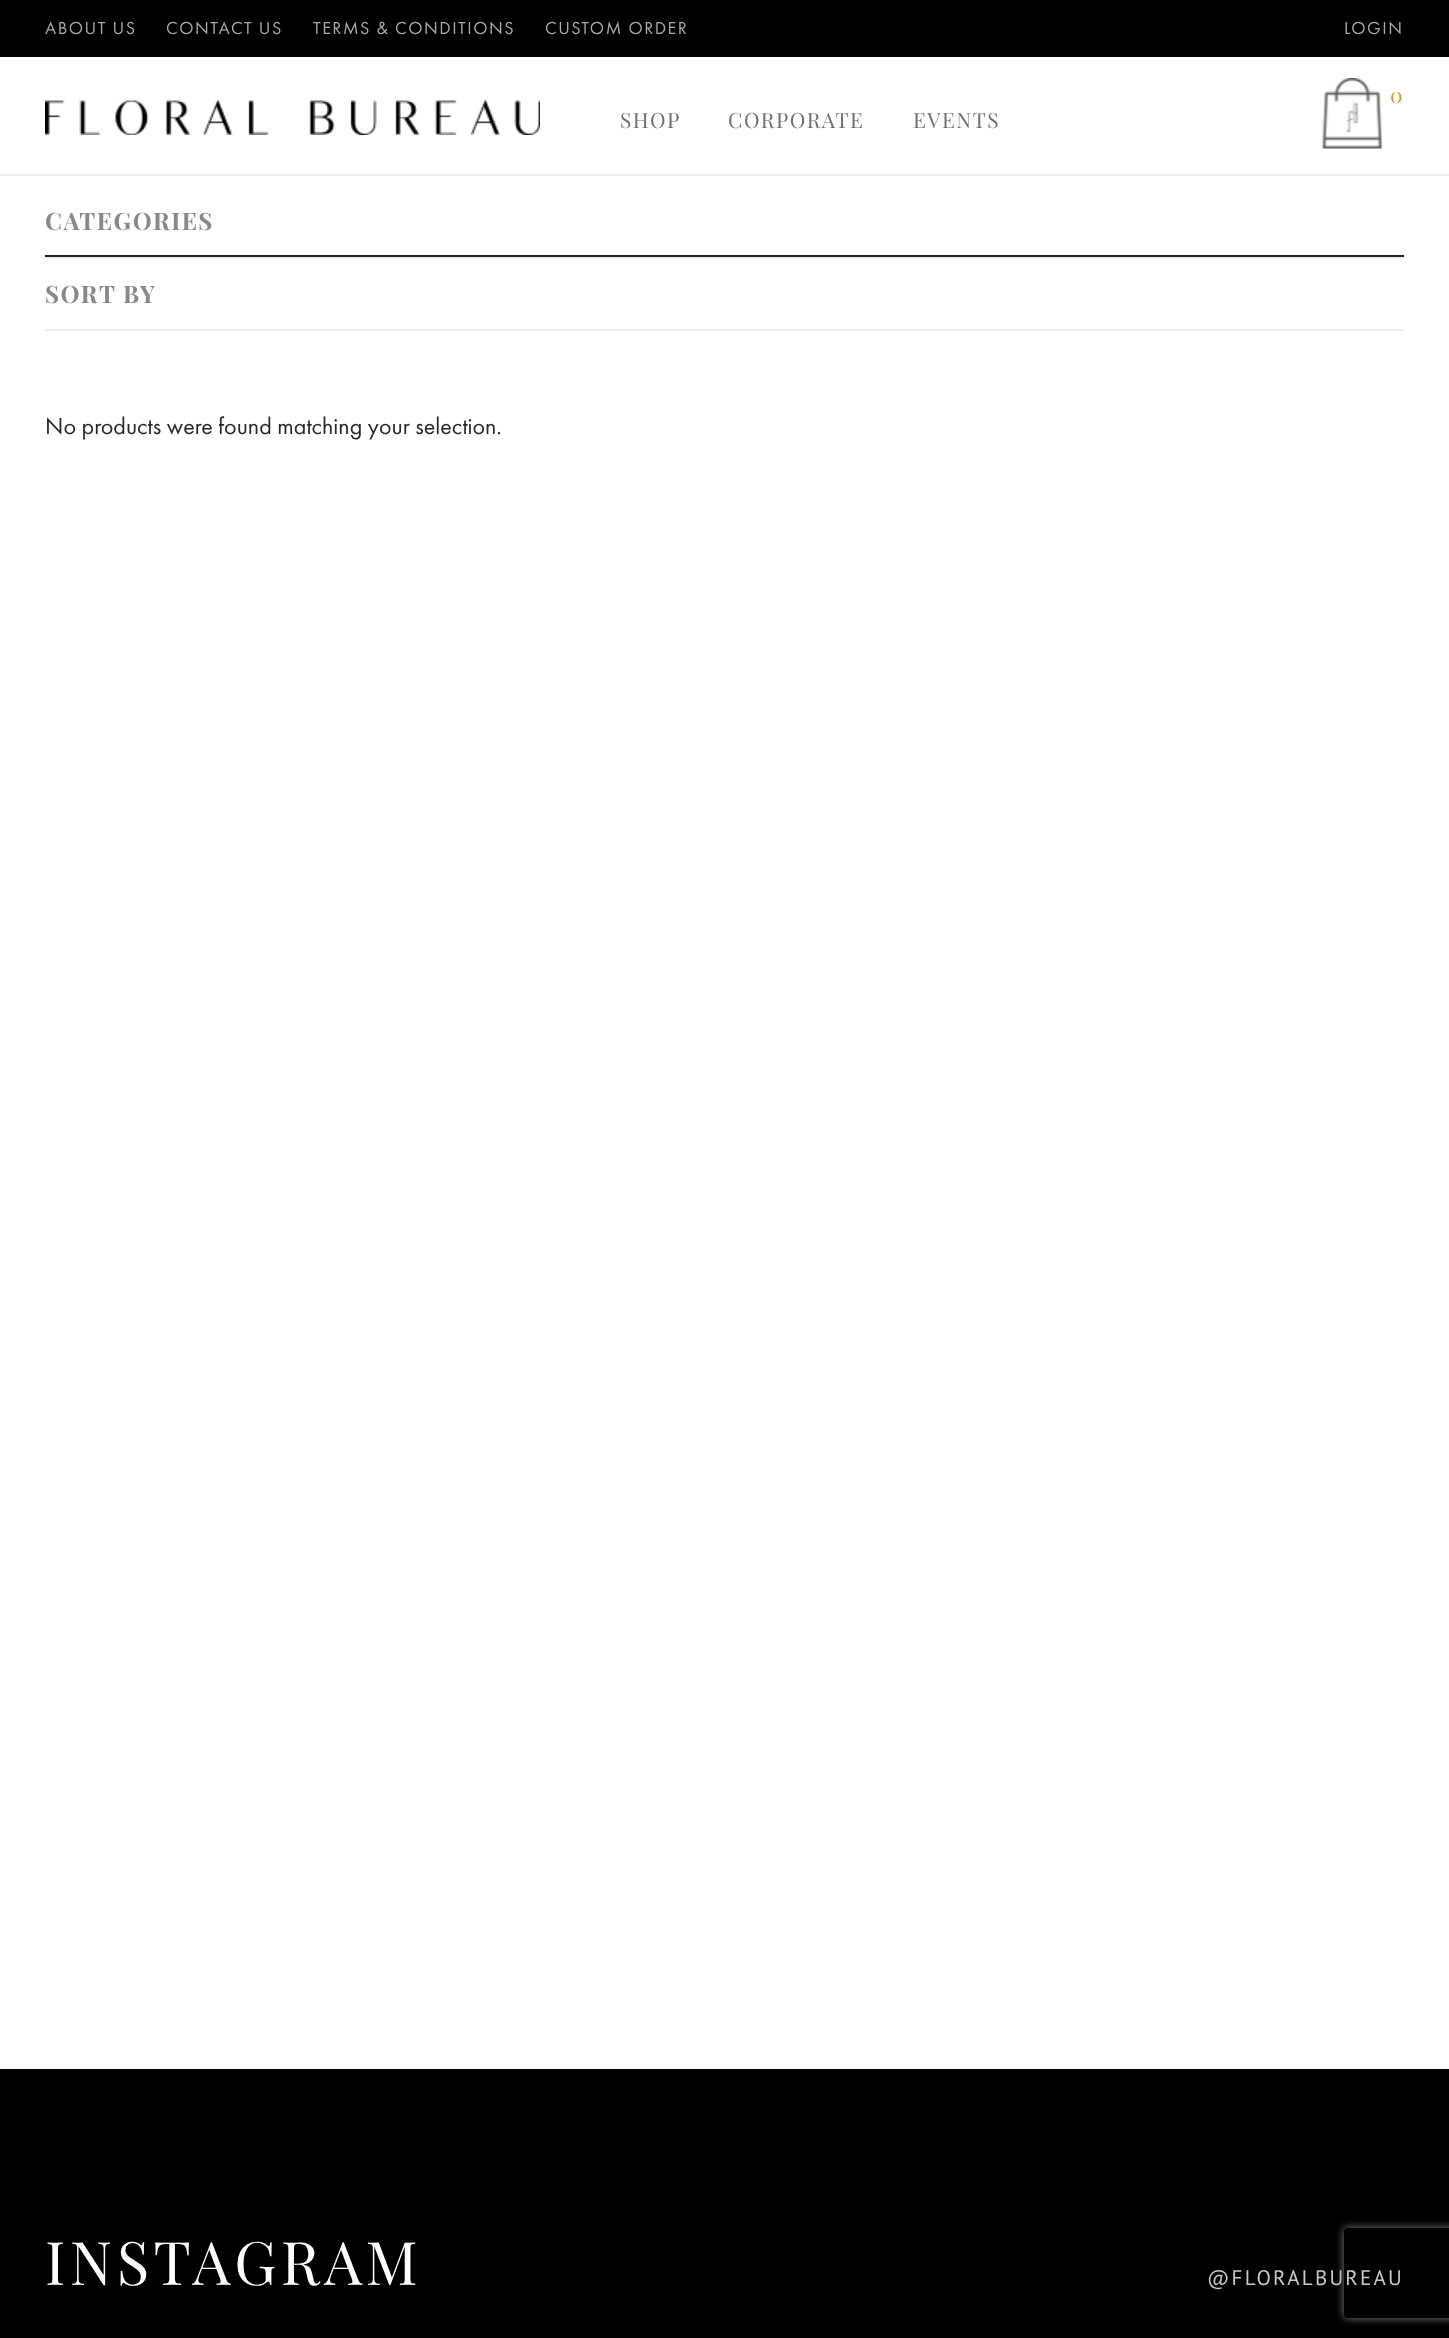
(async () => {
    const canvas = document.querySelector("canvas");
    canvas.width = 1449;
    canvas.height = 2338;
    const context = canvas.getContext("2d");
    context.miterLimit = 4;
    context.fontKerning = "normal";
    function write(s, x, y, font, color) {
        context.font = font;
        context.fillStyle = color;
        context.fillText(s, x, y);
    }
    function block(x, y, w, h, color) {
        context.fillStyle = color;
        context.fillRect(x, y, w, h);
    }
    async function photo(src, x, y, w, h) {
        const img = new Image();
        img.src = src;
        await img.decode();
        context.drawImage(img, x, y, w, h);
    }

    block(0, 0, 1449, 2338, "rgb(255, 255, 255)");
    block(0, 0, 1449, 57, "rgb(0, 0, 0)");
    context.letterSpacing = "1.5px";
    write("ABOUT US", 45, 34, "18px Futura PT", "rgb(170, 170, 170)");
    write("CONTACT US", 166, 34, "18px Futura PT", "rgb(170, 170, 170)");
    write("TERMS & CONDITIONS", 313, 34, "18px Futura PT", "rgb(170, 170, 170)");
    write("CUSTOM ORDER", 545, 34, "18px Futura PT", "rgb(170, 170, 170)");
    write("LOGIN", 1344, 34, "18px Futura PT", "rgb(170, 170, 170)");
    block(0, 174, 1449, 2, "rgb(238, 238, 238)");
    await photo("media/1.png", 1322, 78, 60, 71);
    write("0", 1390, 103, "21px Playfair Display", "rgb(220, 152, 20)");
    await photo("media/2.png", 45, 100, 495, 35);
    write("SHOP", 620, 128, "21px Playfair Display", "rgb(112, 112, 112)");
    write("CORPORATE", 728, 128, "21px Playfair Display", "rgb(112, 112, 112)");
    write("EVENTS", 913, 128, "21px Playfair Display", "rgb(112, 112, 112)");
    block(45, 255, 1359, 2, "rgb(34, 34, 34)");
    write("CATEGORIES", 45, 230, "bold 24px Playfair Display", "rgb(136, 136, 136)");
    block(45, 257, 1359, 2, "rgb(238, 238, 238)");
    block(45, 329, 1359, 2, "rgb(238, 238, 238)");
    write("SORT BY", 45, 303, "bold 24px Playfair Display", "rgb(136, 136, 136)");
    context.letterSpacing = "0px";
    write("No products were found matching your selection.", 45, 434, "24px Futura PT", "rgb(40, 40, 40)");
    block(0, 2069, 1449, 269, "rgb(0, 0, 0)");
    context.letterSpacing = "4.5px";
    write("INSTAGRAM", 45, 2285, "60px Playfair Display", "rgb(255, 255, 255)");
    context.letterSpacing = "2.25px";
    write("@FLORALBUREAU", 1207, 2285, "21px PT Sans", "rgb(201, 201, 201)");
    context.save();
    context.beginPath();
    context.moveTo(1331, 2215);
    context.lineTo(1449, 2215);
    context.lineTo(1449, 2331);
    context.lineTo(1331, 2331);
    context.closePath();
    context.moveTo(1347, 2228);
    context.lineTo(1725, 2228);
    context.bezierCurveTo(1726.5, 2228, 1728, 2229.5, 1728, 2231);
    context.lineTo(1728, 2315);
    context.bezierCurveTo(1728, 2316.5, 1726.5, 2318, 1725, 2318);
    context.lineTo(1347, 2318);
    context.bezierCurveTo(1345.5, 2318, 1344, 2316.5, 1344, 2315);
    context.lineTo(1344, 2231);
    context.bezierCurveTo(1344, 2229.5, 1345.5, 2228, 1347, 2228);
    context.closePath();
    context.clip("evenodd");
    context.fillStyle = "rgb(128, 128, 128)";
    context.filter = "blur(4px)";
    context.beginPath();
    context.roundRect(1344, 2228, 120, 90, 3);
    context.fill();
    context.filter = "none";
    context.restore();
})();
